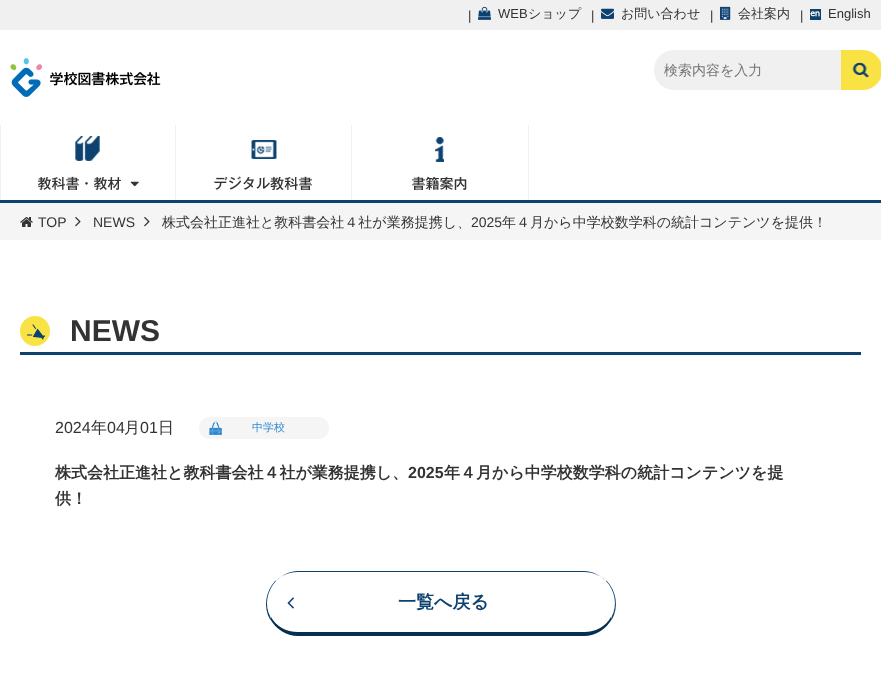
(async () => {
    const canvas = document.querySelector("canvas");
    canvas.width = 881;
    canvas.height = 679;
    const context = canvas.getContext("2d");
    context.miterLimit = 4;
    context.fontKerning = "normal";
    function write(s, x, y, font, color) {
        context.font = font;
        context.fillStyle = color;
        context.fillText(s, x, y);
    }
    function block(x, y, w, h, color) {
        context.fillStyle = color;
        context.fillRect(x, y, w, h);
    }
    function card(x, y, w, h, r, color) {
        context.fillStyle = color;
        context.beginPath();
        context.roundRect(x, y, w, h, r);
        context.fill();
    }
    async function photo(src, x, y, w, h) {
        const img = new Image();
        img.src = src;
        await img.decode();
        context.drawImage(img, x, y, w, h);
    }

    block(0, 0, 881, 679, "rgb(255, 255, 255)");
    block(0, 200, 881, 3, "rgb(13, 66, 112)");
    block(0, 0, 881, 30, "rgb(240, 240, 240)");
    write("|", 468, 20, "13px Liberation Sans", "rgb(51, 51, 51)");
    await photo("media/1.png", 478, 6, 13, 14);
    write("WEB", 498, 18, "13px Liberation Sans", "rgb(51, 51, 51)");
    write("ショップ", 528, 18, "500 13px WenQuanYi Zen Hei", "rgb(51, 51, 51)");
    write("|", 591, 20, "13px Liberation Sans", "rgb(51, 51, 51)");
    await photo("media/2.png", 601, 8, 13, 11);
    write("お問い合わせ", 621, 18, "500 13px WenQuanYi Zen Hei", "rgb(51, 51, 51)");
    write("|", 710, 20, "13px Liberation Sans", "rgb(51, 51, 51)");
    await photo("media/3.png", 720, 6, 11, 14);
    write("会社案内", 738, 18, "500 13px WenQuanYi Zen Hei", "rgb(51, 51, 51)");
    write("|", 800, 20, "13px Liberation Sans", "rgb(51, 51, 51)");
    await photo("media/4.png", 810, 9, 11, 11);
    write("English", 828, 18, "13px Liberation Sans", "rgb(51, 51, 51)");
    await photo("media/5.png", 10, 58, 151, 39);
    context.fillStyle = "rgb(240, 240, 240)";
    context.beginPath();
    context.roundRect(654, 50, 187, 40, [20, 0, 0, 20]);
    context.fill();
    write("検索内容を入力", 664, 75, "500 14px WenQuanYi Zen Hei", "rgb(117, 117, 117)");
    await photo("media/6.png", 841, 50, 40, 40);
    block(175, 125, 1, 75, "rgb(240, 240, 240)");
    block(0, 125, 1, 75, "rgb(240, 240, 240)");
    await photo("media/7.png", 38, 136, 101, 54);
    block(351, 125, 1, 75, "rgb(240, 240, 240)");
    await photo("media/8.png", 214, 140, 98, 50);
    block(528, 125, 1, 75, "rgb(240, 240, 240)");
    await photo("media/9.png", 412, 137, 55, 53);
    block(0, 203, 881, 37, "rgb(245, 245, 245)");
    await photo("media/10.png", 20, 217, 13, 10);
    write("TOP", 38, 227, "14px Liberation Sans", "rgb(51, 51, 51)");
    await photo("media/11.png", 75, 217, 6, 10);
    write("NEWS", 93, 227, "14px Liberation Sans", "rgb(51, 51, 51)");
    await photo("media/11.png", 144, 217, 6, 10);
    write("株式会社正進社と教科書会社４社が業務提携し、", 162, 227, "500 14px WenQuanYi Zen Hei", "rgb(51, 51, 51)");
    write("2025", 471, 227, "14px Liberation Sans", "rgb(51, 51, 51)");
    write("年４月から中学校数学科の統計コンテンツを提供！", 502, 227, "500 14px WenQuanYi Zen Hei", "rgb(51, 51, 51)");
    await photo("media/12.png", 20, 316, 30, 30);
    block(20, 352, 841, 3, "rgb(13, 66, 112)");
    write("NEWS", 70, 341, "bold 30px Liberation Sans", "rgb(51, 51, 51)");
    write("2024", 55, 433, "16px Liberation Sans", "rgb(51, 51, 51)");
    write("年", 91, 433, "500 16px WenQuanYi Zen Hei", "rgb(51, 51, 51)");
    write("04", 107, 433, "16px Liberation Sans", "rgb(51, 51, 51)");
    write("月", 124, 433, "500 16px WenQuanYi Zen Hei", "rgb(51, 51, 51)");
    write("01", 140, 433, "16px Liberation Sans", "rgb(51, 51, 51)");
    write("日", 158, 433, "500 16px WenQuanYi Zen Hei", "rgb(51, 51, 51)");
    card(199, 417, 130, 22, 11, "rgb(245, 245, 245)");
    await photo("media/13.png", 209, 421, 13, 14);
    write("中学校", 252, 431, "500 11px WenQuanYi Zen Hei", "rgb(46, 136, 206)");
    write("株式会社正進社と教科書会社４社が業務提携し、", 55, 478, "bold 16px WenQuanYi Zen Hei", "rgb(51, 51, 51)");
    write("2025", 408, 478, "bold 16px Liberation Sans", "rgb(51, 51, 51)");
    write("年４月から中学校数学科の統計コンテンツを提", 444, 478, "bold 16px WenQuanYi Zen Hei", "rgb(51, 51, 51)");
    write("供！", 55, 504, "bold 16px WenQuanYi Zen Hei", "rgb(51, 51, 51)");
    context.fillStyle = "rgb(13, 66, 112)";
    context.beginPath();
    context.moveTo(298, 571);
    context.bezierCurveTo(290, 571, 282, 575, 276, 581);
    context.bezierCurveTo(282, 575, 290, 572, 298, 572);
    context.lineTo(584, 572);
    context.bezierCurveTo(592, 572, 600, 575, 606, 581);
    context.bezierCurveTo(600, 575, 592, 571, 584, 571);
    context.closePath();
    context.fill();
    context.beginPath();
    context.moveTo(606.5, 580.5);
    context.bezierCurveTo(616.5, 591, 619, 607, 612, 619.5);
    context.lineTo(611.5, 617);
    context.bezierCurveTo(618, 605.5, 615, 590.5, 606, 581);
    context.closePath();
    context.fill();
    context.fillStyle = "rgb(5, 46, 81)";
    context.beginPath();
    context.moveTo(298, 636);
    context.lineTo(584, 636);
    context.bezierCurveTo(596, 636, 606, 629, 612, 619);
    context.lineTo(611, 617);
    context.bezierCurveTo(606, 626, 596, 632, 584, 632);
    context.lineTo(298, 632);
    context.bezierCurveTo(286, 632, 276, 626, 271, 617);
    context.lineTo(270, 619);
    context.bezierCurveTo(276, 629, 286, 636, 298, 636);
    context.closePath();
    context.fill();
    context.fillStyle = "rgb(13, 66, 112)";
    context.beginPath();
    context.moveTo(270, 619.5);
    context.bezierCurveTo(263, 607, 265.5, 591, 275.5, 580.5);
    context.lineTo(276, 581);
    context.bezierCurveTo(267, 590.5, 264, 605.5, 270.5, 617);
    context.closePath();
    context.fill();
    await photo("media/14.png", 287, 597, 7, 12);
    write("一覧へ戻る", 398, 608, "bold 18px WenQuanYi Zen Hei", "rgb(13, 66, 112)");
})();
